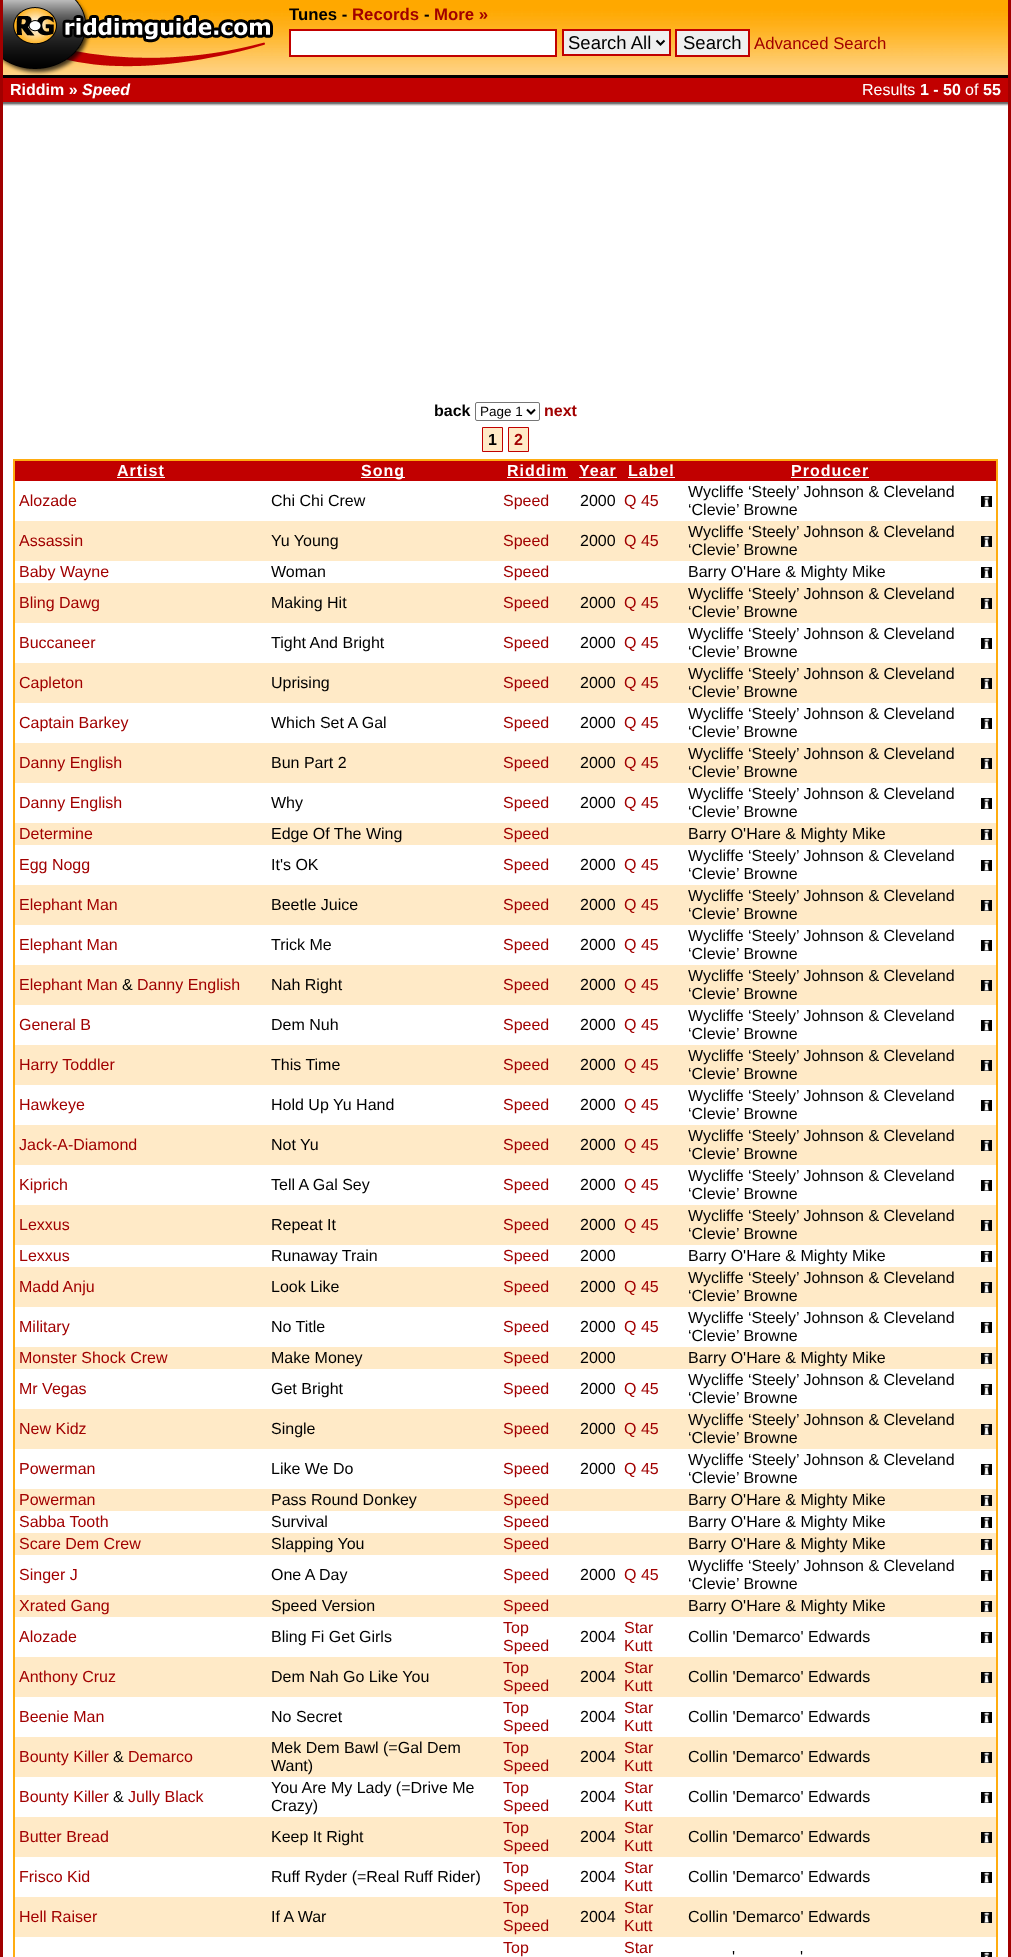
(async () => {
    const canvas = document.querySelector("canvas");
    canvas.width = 1011;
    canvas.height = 1957;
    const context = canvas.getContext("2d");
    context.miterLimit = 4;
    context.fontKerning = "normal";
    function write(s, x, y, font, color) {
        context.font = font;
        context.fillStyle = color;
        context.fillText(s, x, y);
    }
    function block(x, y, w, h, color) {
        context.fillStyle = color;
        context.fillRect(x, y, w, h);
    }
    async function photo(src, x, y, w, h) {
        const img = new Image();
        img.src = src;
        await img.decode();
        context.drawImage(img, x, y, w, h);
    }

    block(0, 0, 1011, 1957, "rgb(255, 255, 255)");
    block(1008, 0, 3, 1957, "rgb(161, 0, 0)");
    block(0, 0, 3, 1957, "rgb(161, 0, 0)");
    await photo("media/1.png", 3, 0, 1005, 75);
    await photo("media/2.png", 3, 0, 270, 75);
    write("Tunes -", 289, 20, "bold 16.75px Liberation Sans", "rgb(0, 0, 0)");
    write("Records", 352, 20, "bold 16.75px Liberation Sans", "rgb(161, 0, 0)");
    write("-", 424, 20, "bold 16.75px Liberation Sans", "rgb(0, 0, 0)");
    write("More »", 434, 20, "bold 16.75px Liberation Sans", "rgb(161, 0, 0)");
    context.fillStyle = "rgb(255, 255, 255)";
    context.beginPath();
    context.rect(290, 30, 266, 26);
    context.fill();
    context.strokeStyle = "rgb(193, 0, 0)";
    context.lineWidth = 2;
    context.stroke();
    context.fillStyle = "rgb(239, 239, 239)";
    context.beginPath();
    context.rect(563, 30, 107, 25);
    context.fill();
    context.stroke();
    context.beginPath();
    context.moveTo(656.5, 40.5);
    context.lineTo(660.5, 44.5);
    context.lineTo(664.5, 40.5);
    context.strokeStyle = "rgb(0, 0, 0)";
    context.stroke();
    write("Search All", 568, 49, "18.5px Liberation Sans", "rgb(0, 0, 0)");
    context.fillStyle = "rgb(239, 239, 239)";
    context.beginPath();
    context.rect(676, 30, 73, 26);
    context.fill();
    context.strokeStyle = "rgb(193, 0, 0)";
    context.stroke();
    write("Search", 683, 49, "18.5px Liberation Sans", "rgb(0, 0, 0)");
    write("Advanced Search", 754, 49, "16.75px Liberation Sans", "rgb(161, 0, 0)");
    block(3, 78, 1005, 24, "rgb(193, 0, 0)");
    block(3, 75, 1005, 3, "rgb(0, 0, 0)");
    write("Riddim »", 10, 95, "bold 16px Liberation Sans", "rgb(255, 255, 255)");
    write("Speed", 82, 95, "italic bold 16px Liberation Sans", "rgb(255, 255, 255)");
    write("Results", 862, 95, "16px Liberation Sans", "rgb(255, 255, 255)");
    write("1 - 50", 920, 95, "bold 16px Liberation Sans", "rgb(255, 255, 255)");
    write("of", 965, 95, "16px Liberation Sans", "rgb(255, 255, 255)");
    write("55", 983, 95, "bold 16px Liberation Sans", "rgb(255, 255, 255)");
    await photo("media/3.png", 3, 102, 1005, 4);
    write("back", 434, 416, "bold 16px Liberation Sans", "rgb(0, 0, 0)");
    context.beginPath();
    context.roundRect(475.5, 402.5, 64, 18, 1.5);
    context.strokeStyle = "rgb(118, 118, 118)";
    context.lineWidth = 1;
    context.stroke();
    context.beginPath();
    context.moveTo(527, 409.5);
    context.lineTo(531, 413.5);
    context.lineTo(535, 409.5);
    context.strokeStyle = "rgb(0, 0, 0)";
    context.lineWidth = 2;
    context.stroke();
    write("Page 1", 480, 416, "13.5px Liberation Sans", "rgb(0, 0, 0)");
    write("next", 544, 416, "bold 16px Liberation Sans", "rgb(161, 0, 0)");
    context.fillStyle = "rgb(255, 234, 199)";
    context.beginPath();
    context.rect(482.5, 427.5, 20, 24);
    context.fill();
    context.strokeStyle = "rgb(193, 0, 0)";
    context.lineWidth = 1;
    context.stroke();
    write("1", 488, 445, "bold 16px Liberation Sans", "rgb(0, 0, 0)");
    context.fillStyle = "rgb(255, 234, 199)";
    context.beginPath();
    context.rect(508.5, 427.5, 20, 24);
    context.fill();
    context.stroke();
    write("2", 514, 445, "bold 16px Liberation Sans", "rgb(161, 0, 0)");
    context.strokeStyle = "rgb(255, 172, 16)";
    context.lineWidth = 2;
    context.strokeRect(14, 460, 983, 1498);
    block(15, 461, 981, 20, "rgb(193, 0, 0)");
    context.letterSpacing = "1px";
    write("Artist", 117, 476, "bold 16px Liberation Sans", "rgb(255, 255, 255)");
    block(117, 477, 48, 1, "rgb(255, 255, 255)");
    block(361, 477, 44, 1, "rgb(255, 255, 255)");
    write("Song", 361, 476, "bold 16px Liberation Sans", "rgb(255, 255, 255)");
    write("Riddim", 507, 476, "bold 16px Liberation Sans", "rgb(255, 255, 255)");
    block(507, 477, 61, 1, "rgb(255, 255, 255)");
    write("Year", 579, 476, "bold 16px Liberation Sans", "rgb(255, 255, 255)");
    block(579, 477, 38, 1, "rgb(255, 255, 255)");
    write("Label", 628, 476, "bold 16px Liberation Sans", "rgb(255, 255, 255)");
    block(628, 477, 47, 1, "rgb(255, 255, 255)");
    write("Producer", 791, 476, "bold 16px Liberation Sans", "rgb(255, 255, 255)");
    block(791, 477, 78, 1, "rgb(255, 255, 255)");
    context.letterSpacing = "0px";
    write("Alozade", 19, 506, "16px Liberation Sans", "rgb(161, 0, 0)");
    write("Chi Chi Crew", 271, 506, "16px Liberation Sans", "rgb(0, 0, 0)");
    write("Speed", 503, 506, "16px Liberation Sans", "rgb(161, 0, 0)");
    write("2000", 580, 506, "16px Liberation Sans", "rgb(0, 0, 0)");
    write("Q 45", 624, 506, "16px Liberation Sans", "rgb(161, 0, 0)");
    write("Wycliffe ‘Steely’ Johnson & Cleveland", 688, 497, "16px Liberation Sans", "rgb(0, 0, 0)");
    write("‘Clevie’ Browne", 688, 515, "16px Liberation Sans", "rgb(0, 0, 0)");
    await photo("media/4.png", 981, 496, 11, 11);
    block(15, 521, 981, 40, "rgb(255, 234, 199)");
    write("Assassin", 19, 546, "16px Liberation Sans", "rgb(161, 0, 0)");
    write("Yu Young", 271, 546, "16px Liberation Sans", "rgb(0, 0, 0)");
    write("Speed", 503, 546, "16px Liberation Sans", "rgb(161, 0, 0)");
    write("2000", 580, 546, "16px Liberation Sans", "rgb(0, 0, 0)");
    write("Q 45", 624, 546, "16px Liberation Sans", "rgb(161, 0, 0)");
    write("Wycliffe ‘Steely’ Johnson & Cleveland", 688, 537, "16px Liberation Sans", "rgb(0, 0, 0)");
    write("‘Clevie’ Browne", 688, 555, "16px Liberation Sans", "rgb(0, 0, 0)");
    await photo("media/4.png", 981, 536, 11, 11);
    write("Baby Wayne", 19, 577, "16px Liberation Sans", "rgb(161, 0, 0)");
    write("Woman", 271, 577, "16px Liberation Sans", "rgb(0, 0, 0)");
    write("Speed", 503, 577, "16px Liberation Sans", "rgb(161, 0, 0)");
    write("Barry O'Hare & Mighty Mike", 688, 577, "16px Liberation Sans", "rgb(0, 0, 0)");
    await photo("media/4.png", 981, 567, 11, 11);
    block(15, 583, 981, 40, "rgb(255, 234, 199)");
    write("Bling Dawg", 19, 608, "16px Liberation Sans", "rgb(161, 0, 0)");
    write("Making Hit", 271, 608, "16px Liberation Sans", "rgb(0, 0, 0)");
    write("Speed", 503, 608, "16px Liberation Sans", "rgb(161, 0, 0)");
    write("2000", 580, 608, "16px Liberation Sans", "rgb(0, 0, 0)");
    write("Q 45", 624, 608, "16px Liberation Sans", "rgb(161, 0, 0)");
    write("Wycliffe ‘Steely’ Johnson & Cleveland", 688, 599, "16px Liberation Sans", "rgb(0, 0, 0)");
    write("‘Clevie’ Browne", 688, 617, "16px Liberation Sans", "rgb(0, 0, 0)");
    await photo("media/4.png", 981, 598, 11, 11);
    write("Buccaneer", 19, 648, "16px Liberation Sans", "rgb(161, 0, 0)");
    write("Tight And Bright", 271, 648, "16px Liberation Sans", "rgb(0, 0, 0)");
    write("Speed", 503, 648, "16px Liberation Sans", "rgb(161, 0, 0)");
    write("2000", 580, 648, "16px Liberation Sans", "rgb(0, 0, 0)");
    write("Q 45", 624, 648, "16px Liberation Sans", "rgb(161, 0, 0)");
    write("Wycliffe ‘Steely’ Johnson & Cleveland", 688, 639, "16px Liberation Sans", "rgb(0, 0, 0)");
    write("‘Clevie’ Browne", 688, 657, "16px Liberation Sans", "rgb(0, 0, 0)");
    await photo("media/4.png", 981, 638, 11, 11);
    block(15, 663, 981, 40, "rgb(255, 234, 199)");
    write("Capleton", 19, 688, "16px Liberation Sans", "rgb(161, 0, 0)");
    write("Uprising", 271, 688, "16px Liberation Sans", "rgb(0, 0, 0)");
    write("Speed", 503, 688, "16px Liberation Sans", "rgb(161, 0, 0)");
    write("2000", 580, 688, "16px Liberation Sans", "rgb(0, 0, 0)");
    write("Q 45", 624, 688, "16px Liberation Sans", "rgb(161, 0, 0)");
    write("Wycliffe ‘Steely’ Johnson & Cleveland", 688, 679, "16px Liberation Sans", "rgb(0, 0, 0)");
    write("‘Clevie’ Browne", 688, 697, "16px Liberation Sans", "rgb(0, 0, 0)");
    await photo("media/4.png", 981, 678, 11, 11);
    write("Captain Barkey", 19, 728, "16px Liberation Sans", "rgb(161, 0, 0)");
    write("Which Set A Gal", 271, 728, "16px Liberation Sans", "rgb(0, 0, 0)");
    write("Speed", 503, 728, "16px Liberation Sans", "rgb(161, 0, 0)");
    write("2000", 580, 728, "16px Liberation Sans", "rgb(0, 0, 0)");
    write("Q 45", 624, 728, "16px Liberation Sans", "rgb(161, 0, 0)");
    write("Wycliffe ‘Steely’ Johnson & Cleveland", 688, 719, "16px Liberation Sans", "rgb(0, 0, 0)");
    write("‘Clevie’ Browne", 688, 737, "16px Liberation Sans", "rgb(0, 0, 0)");
    await photo("media/4.png", 981, 718, 11, 11);
    block(15, 743, 981, 40, "rgb(255, 234, 199)");
    write("Danny English", 19, 768, "16px Liberation Sans", "rgb(161, 0, 0)");
    write("Bun Part 2", 271, 768, "16px Liberation Sans", "rgb(0, 0, 0)");
    write("Speed", 503, 768, "16px Liberation Sans", "rgb(161, 0, 0)");
    write("2000", 580, 768, "16px Liberation Sans", "rgb(0, 0, 0)");
    write("Q 45", 624, 768, "16px Liberation Sans", "rgb(161, 0, 0)");
    write("Wycliffe ‘Steely’ Johnson & Cleveland", 688, 759, "16px Liberation Sans", "rgb(0, 0, 0)");
    write("‘Clevie’ Browne", 688, 777, "16px Liberation Sans", "rgb(0, 0, 0)");
    await photo("media/4.png", 981, 758, 11, 11);
    write("Danny English", 19, 808, "16px Liberation Sans", "rgb(161, 0, 0)");
    write("Why", 271, 808, "16px Liberation Sans", "rgb(0, 0, 0)");
    write("Speed", 503, 808, "16px Liberation Sans", "rgb(161, 0, 0)");
    write("2000", 580, 808, "16px Liberation Sans", "rgb(0, 0, 0)");
    write("Q 45", 624, 808, "16px Liberation Sans", "rgb(161, 0, 0)");
    write("Wycliffe ‘Steely’ Johnson & Cleveland", 688, 799, "16px Liberation Sans", "rgb(0, 0, 0)");
    write("‘Clevie’ Browne", 688, 817, "16px Liberation Sans", "rgb(0, 0, 0)");
    await photo("media/4.png", 981, 798, 11, 11);
    block(15, 823, 981, 22, "rgb(255, 234, 199)");
    write("Determine", 19, 839, "16px Liberation Sans", "rgb(161, 0, 0)");
    write("Edge Of The Wing", 271, 839, "16px Liberation Sans", "rgb(0, 0, 0)");
    write("Speed", 503, 839, "16px Liberation Sans", "rgb(161, 0, 0)");
    write("Barry O'Hare & Mighty Mike", 688, 839, "16px Liberation Sans", "rgb(0, 0, 0)");
    await photo("media/4.png", 981, 829, 11, 11);
    write("Egg Nogg", 19, 870, "16px Liberation Sans", "rgb(161, 0, 0)");
    write("It's OK", 271, 870, "16px Liberation Sans", "rgb(0, 0, 0)");
    write("Speed", 503, 870, "16px Liberation Sans", "rgb(161, 0, 0)");
    write("2000", 580, 870, "16px Liberation Sans", "rgb(0, 0, 0)");
    write("Q 45", 624, 870, "16px Liberation Sans", "rgb(161, 0, 0)");
    write("Wycliffe ‘Steely’ Johnson & Cleveland", 688, 861, "16px Liberation Sans", "rgb(0, 0, 0)");
    write("‘Clevie’ Browne", 688, 879, "16px Liberation Sans", "rgb(0, 0, 0)");
    await photo("media/4.png", 981, 860, 11, 11);
    block(15, 885, 981, 40, "rgb(255, 234, 199)");
    write("Elephant Man", 19, 910, "16px Liberation Sans", "rgb(161, 0, 0)");
    write("Beetle Juice", 271, 910, "16px Liberation Sans", "rgb(0, 0, 0)");
    write("Speed", 503, 910, "16px Liberation Sans", "rgb(161, 0, 0)");
    write("2000", 580, 910, "16px Liberation Sans", "rgb(0, 0, 0)");
    write("Q 45", 624, 910, "16px Liberation Sans", "rgb(161, 0, 0)");
    write("Wycliffe ‘Steely’ Johnson & Cleveland", 688, 901, "16px Liberation Sans", "rgb(0, 0, 0)");
    write("‘Clevie’ Browne", 688, 919, "16px Liberation Sans", "rgb(0, 0, 0)");
    await photo("media/4.png", 981, 900, 11, 11);
    write("Elephant Man", 19, 950, "16px Liberation Sans", "rgb(161, 0, 0)");
    write("Trick Me", 271, 950, "16px Liberation Sans", "rgb(0, 0, 0)");
    write("Speed", 503, 950, "16px Liberation Sans", "rgb(161, 0, 0)");
    write("2000", 580, 950, "16px Liberation Sans", "rgb(0, 0, 0)");
    write("Q 45", 624, 950, "16px Liberation Sans", "rgb(161, 0, 0)");
    write("Wycliffe ‘Steely’ Johnson & Cleveland", 688, 941, "16px Liberation Sans", "rgb(0, 0, 0)");
    write("‘Clevie’ Browne", 688, 959, "16px Liberation Sans", "rgb(0, 0, 0)");
    await photo("media/4.png", 981, 940, 11, 11);
    block(15, 965, 981, 40, "rgb(255, 234, 199)");
    write("Elephant Man", 19, 990, "16px Liberation Sans", "rgb(161, 0, 0)");
    write("&", 122, 990, "16px Liberation Sans", "rgb(0, 0, 0)");
    write("Danny English", 137, 990, "16px Liberation Sans", "rgb(161, 0, 0)");
    write("Nah Right", 271, 990, "16px Liberation Sans", "rgb(0, 0, 0)");
    write("Speed", 503, 990, "16px Liberation Sans", "rgb(161, 0, 0)");
    write("2000", 580, 990, "16px Liberation Sans", "rgb(0, 0, 0)");
    write("Q 45", 624, 990, "16px Liberation Sans", "rgb(161, 0, 0)");
    write("Wycliffe ‘Steely’ Johnson & Cleveland", 688, 981, "16px Liberation Sans", "rgb(0, 0, 0)");
    write("‘Clevie’ Browne", 688, 999, "16px Liberation Sans", "rgb(0, 0, 0)");
    await photo("media/4.png", 981, 980, 11, 11);
    write("General B", 19, 1030, "16px Liberation Sans", "rgb(161, 0, 0)");
    write("Dem Nuh", 271, 1030, "16px Liberation Sans", "rgb(0, 0, 0)");
    write("Speed", 503, 1030, "16px Liberation Sans", "rgb(161, 0, 0)");
    write("2000", 580, 1030, "16px Liberation Sans", "rgb(0, 0, 0)");
    write("Q 45", 624, 1030, "16px Liberation Sans", "rgb(161, 0, 0)");
    write("Wycliffe ‘Steely’ Johnson & Cleveland", 688, 1021, "16px Liberation Sans", "rgb(0, 0, 0)");
    write("‘Clevie’ Browne", 688, 1039, "16px Liberation Sans", "rgb(0, 0, 0)");
    await photo("media/4.png", 981, 1020, 11, 11);
    block(15, 1045, 981, 40, "rgb(255, 234, 199)");
    write("Harry Toddler", 19, 1070, "16px Liberation Sans", "rgb(161, 0, 0)");
    write("This Time", 271, 1070, "16px Liberation Sans", "rgb(0, 0, 0)");
    write("Speed", 503, 1070, "16px Liberation Sans", "rgb(161, 0, 0)");
    write("2000", 580, 1070, "16px Liberation Sans", "rgb(0, 0, 0)");
    write("Q 45", 624, 1070, "16px Liberation Sans", "rgb(161, 0, 0)");
    write("Wycliffe ‘Steely’ Johnson & Cleveland", 688, 1061, "16px Liberation Sans", "rgb(0, 0, 0)");
    write("‘Clevie’ Browne", 688, 1079, "16px Liberation Sans", "rgb(0, 0, 0)");
    await photo("media/4.png", 981, 1060, 11, 11);
    write("Hawkeye", 19, 1110, "16px Liberation Sans", "rgb(161, 0, 0)");
    write("Hold Up Yu Hand", 271, 1110, "16px Liberation Sans", "rgb(0, 0, 0)");
    write("Speed", 503, 1110, "16px Liberation Sans", "rgb(161, 0, 0)");
    write("2000", 580, 1110, "16px Liberation Sans", "rgb(0, 0, 0)");
    write("Q 45", 624, 1110, "16px Liberation Sans", "rgb(161, 0, 0)");
    write("Wycliffe ‘Steely’ Johnson & Cleveland", 688, 1101, "16px Liberation Sans", "rgb(0, 0, 0)");
    write("‘Clevie’ Browne", 688, 1119, "16px Liberation Sans", "rgb(0, 0, 0)");
    await photo("media/4.png", 981, 1100, 11, 11);
    block(15, 1125, 981, 40, "rgb(255, 234, 199)");
    write("Jack-A-Diamond", 19, 1150, "16px Liberation Sans", "rgb(161, 0, 0)");
    write("Not Yu", 271, 1150, "16px Liberation Sans", "rgb(0, 0, 0)");
    write("Speed", 503, 1150, "16px Liberation Sans", "rgb(161, 0, 0)");
    write("2000", 580, 1150, "16px Liberation Sans", "rgb(0, 0, 0)");
    write("Q 45", 624, 1150, "16px Liberation Sans", "rgb(161, 0, 0)");
    write("Wycliffe ‘Steely’ Johnson & Cleveland", 688, 1141, "16px Liberation Sans", "rgb(0, 0, 0)");
    write("‘Clevie’ Browne", 688, 1159, "16px Liberation Sans", "rgb(0, 0, 0)");
    await photo("media/4.png", 981, 1140, 11, 11);
    write("Kiprich", 19, 1190, "16px Liberation Sans", "rgb(161, 0, 0)");
    write("Tell A Gal Sey", 271, 1190, "16px Liberation Sans", "rgb(0, 0, 0)");
    write("Speed", 503, 1190, "16px Liberation Sans", "rgb(161, 0, 0)");
    write("2000", 580, 1190, "16px Liberation Sans", "rgb(0, 0, 0)");
    write("Q 45", 624, 1190, "16px Liberation Sans", "rgb(161, 0, 0)");
    write("Wycliffe ‘Steely’ Johnson & Cleveland", 688, 1181, "16px Liberation Sans", "rgb(0, 0, 0)");
    write("‘Clevie’ Browne", 688, 1199, "16px Liberation Sans", "rgb(0, 0, 0)");
    await photo("media/4.png", 981, 1180, 11, 11);
    block(15, 1205, 981, 40, "rgb(255, 234, 199)");
    write("Lexxus", 19, 1230, "16px Liberation Sans", "rgb(161, 0, 0)");
    write("Repeat It", 271, 1230, "16px Liberation Sans", "rgb(0, 0, 0)");
    write("Speed", 503, 1230, "16px Liberation Sans", "rgb(161, 0, 0)");
    write("2000", 580, 1230, "16px Liberation Sans", "rgb(0, 0, 0)");
    write("Q 45", 624, 1230, "16px Liberation Sans", "rgb(161, 0, 0)");
    write("Wycliffe ‘Steely’ Johnson & Cleveland", 688, 1221, "16px Liberation Sans", "rgb(0, 0, 0)");
    write("‘Clevie’ Browne", 688, 1239, "16px Liberation Sans", "rgb(0, 0, 0)");
    await photo("media/4.png", 981, 1220, 11, 11);
    write("Lexxus", 19, 1261, "16px Liberation Sans", "rgb(161, 0, 0)");
    write("Runaway Train", 271, 1261, "16px Liberation Sans", "rgb(0, 0, 0)");
    write("Speed", 503, 1261, "16px Liberation Sans", "rgb(161, 0, 0)");
    write("2000", 580, 1261, "16px Liberation Sans", "rgb(0, 0, 0)");
    write("Barry O'Hare & Mighty Mike", 688, 1261, "16px Liberation Sans", "rgb(0, 0, 0)");
    await photo("media/4.png", 981, 1251, 11, 11);
    block(15, 1267, 981, 40, "rgb(255, 234, 199)");
    write("Madd Anju", 19, 1292, "16px Liberation Sans", "rgb(161, 0, 0)");
    write("Look Like", 271, 1292, "16px Liberation Sans", "rgb(0, 0, 0)");
    write("Speed", 503, 1292, "16px Liberation Sans", "rgb(161, 0, 0)");
    write("2000", 580, 1292, "16px Liberation Sans", "rgb(0, 0, 0)");
    write("Q 45", 624, 1292, "16px Liberation Sans", "rgb(161, 0, 0)");
    write("Wycliffe ‘Steely’ Johnson & Cleveland", 688, 1283, "16px Liberation Sans", "rgb(0, 0, 0)");
    write("‘Clevie’ Browne", 688, 1301, "16px Liberation Sans", "rgb(0, 0, 0)");
    await photo("media/4.png", 981, 1282, 11, 11);
    write("Military", 19, 1332, "16px Liberation Sans", "rgb(161, 0, 0)");
    write("No Title", 271, 1332, "16px Liberation Sans", "rgb(0, 0, 0)");
    write("Speed", 503, 1332, "16px Liberation Sans", "rgb(161, 0, 0)");
    write("2000", 580, 1332, "16px Liberation Sans", "rgb(0, 0, 0)");
    write("Q 45", 624, 1332, "16px Liberation Sans", "rgb(161, 0, 0)");
    write("Wycliffe ‘Steely’ Johnson & Cleveland", 688, 1323, "16px Liberation Sans", "rgb(0, 0, 0)");
    write("‘Clevie’ Browne", 688, 1341, "16px Liberation Sans", "rgb(0, 0, 0)");
    await photo("media/4.png", 981, 1322, 11, 11);
    block(15, 1347, 981, 22, "rgb(255, 234, 199)");
    write("Monster Shock Crew", 19, 1363, "16px Liberation Sans", "rgb(161, 0, 0)");
    write("Make Money", 271, 1363, "16px Liberation Sans", "rgb(0, 0, 0)");
    write("Speed", 503, 1363, "16px Liberation Sans", "rgb(161, 0, 0)");
    write("2000", 580, 1363, "16px Liberation Sans", "rgb(0, 0, 0)");
    write("Barry O'Hare & Mighty Mike", 688, 1363, "16px Liberation Sans", "rgb(0, 0, 0)");
    await photo("media/4.png", 981, 1353, 11, 11);
    write("Mr Vegas", 19, 1394, "16px Liberation Sans", "rgb(161, 0, 0)");
    write("Get Bright", 271, 1394, "16px Liberation Sans", "rgb(0, 0, 0)");
    write("Speed", 503, 1394, "16px Liberation Sans", "rgb(161, 0, 0)");
    write("2000", 580, 1394, "16px Liberation Sans", "rgb(0, 0, 0)");
    write("Q 45", 624, 1394, "16px Liberation Sans", "rgb(161, 0, 0)");
    write("Wycliffe ‘Steely’ Johnson & Cleveland", 688, 1385, "16px Liberation Sans", "rgb(0, 0, 0)");
    write("‘Clevie’ Browne", 688, 1403, "16px Liberation Sans", "rgb(0, 0, 0)");
    await photo("media/4.png", 981, 1384, 11, 11);
    block(15, 1409, 981, 40, "rgb(255, 234, 199)");
    write("New Kidz", 19, 1434, "16px Liberation Sans", "rgb(161, 0, 0)");
    write("Single", 271, 1434, "16px Liberation Sans", "rgb(0, 0, 0)");
    write("Speed", 503, 1434, "16px Liberation Sans", "rgb(161, 0, 0)");
    write("2000", 580, 1434, "16px Liberation Sans", "rgb(0, 0, 0)");
    write("Q 45", 624, 1434, "16px Liberation Sans", "rgb(161, 0, 0)");
    write("Wycliffe ‘Steely’ Johnson & Cleveland", 688, 1425, "16px Liberation Sans", "rgb(0, 0, 0)");
    write("‘Clevie’ Browne", 688, 1443, "16px Liberation Sans", "rgb(0, 0, 0)");
    await photo("media/4.png", 981, 1424, 11, 11);
    write("Powerman", 19, 1474, "16px Liberation Sans", "rgb(161, 0, 0)");
    write("Like We Do", 271, 1474, "16px Liberation Sans", "rgb(0, 0, 0)");
    write("Speed", 503, 1474, "16px Liberation Sans", "rgb(161, 0, 0)");
    write("2000", 580, 1474, "16px Liberation Sans", "rgb(0, 0, 0)");
    write("Q 45", 624, 1474, "16px Liberation Sans", "rgb(161, 0, 0)");
    write("Wycliffe ‘Steely’ Johnson & Cleveland", 688, 1465, "16px Liberation Sans", "rgb(0, 0, 0)");
    write("‘Clevie’ Browne", 688, 1483, "16px Liberation Sans", "rgb(0, 0, 0)");
    await photo("media/4.png", 981, 1464, 11, 11);
    block(15, 1489, 981, 22, "rgb(255, 234, 199)");
    write("Powerman", 19, 1505, "16px Liberation Sans", "rgb(161, 0, 0)");
    write("Pass Round Donkey", 271, 1505, "16px Liberation Sans", "rgb(0, 0, 0)");
    write("Speed", 503, 1505, "16px Liberation Sans", "rgb(161, 0, 0)");
    write("Barry O'Hare & Mighty Mike", 688, 1505, "16px Liberation Sans", "rgb(0, 0, 0)");
    await photo("media/4.png", 981, 1495, 11, 11);
    write("Sabba Tooth", 19, 1527, "16px Liberation Sans", "rgb(161, 0, 0)");
    write("Survival", 271, 1527, "16px Liberation Sans", "rgb(0, 0, 0)");
    write("Speed", 503, 1527, "16px Liberation Sans", "rgb(161, 0, 0)");
    write("Barry O'Hare & Mighty Mike", 688, 1527, "16px Liberation Sans", "rgb(0, 0, 0)");
    await photo("media/4.png", 981, 1517, 11, 11);
    block(15, 1533, 981, 22, "rgb(255, 234, 199)");
    write("Scare Dem Crew", 19, 1549, "16px Liberation Sans", "rgb(161, 0, 0)");
    write("Slapping You", 271, 1549, "16px Liberation Sans", "rgb(0, 0, 0)");
    write("Speed", 503, 1549, "16px Liberation Sans", "rgb(161, 0, 0)");
    write("Barry O'Hare & Mighty Mike", 688, 1549, "16px Liberation Sans", "rgb(0, 0, 0)");
    await photo("media/4.png", 981, 1539, 11, 11);
    write("Singer J", 19, 1580, "16px Liberation Sans", "rgb(161, 0, 0)");
    write("One A Day", 271, 1580, "16px Liberation Sans", "rgb(0, 0, 0)");
    write("Speed", 503, 1580, "16px Liberation Sans", "rgb(161, 0, 0)");
    write("2000", 580, 1580, "16px Liberation Sans", "rgb(0, 0, 0)");
    write("Q 45", 624, 1580, "16px Liberation Sans", "rgb(161, 0, 0)");
    write("Wycliffe ‘Steely’ Johnson & Cleveland", 688, 1571, "16px Liberation Sans", "rgb(0, 0, 0)");
    write("‘Clevie’ Browne", 688, 1589, "16px Liberation Sans", "rgb(0, 0, 0)");
    await photo("media/4.png", 981, 1570, 11, 11);
    block(15, 1595, 981, 22, "rgb(255, 234, 199)");
    write("Xrated Gang", 19, 1611, "16px Liberation Sans", "rgb(161, 0, 0)");
    write("Speed Version", 271, 1611, "16px Liberation Sans", "rgb(0, 0, 0)");
    write("Speed", 503, 1611, "16px Liberation Sans", "rgb(161, 0, 0)");
    write("Barry O'Hare & Mighty Mike", 688, 1611, "16px Liberation Sans", "rgb(0, 0, 0)");
    await photo("media/4.png", 981, 1601, 11, 11);
    write("Alozade", 19, 1642, "16px Liberation Sans", "rgb(161, 0, 0)");
    write("Bling Fi Get Girls", 271, 1642, "16px Liberation Sans", "rgb(0, 0, 0)");
    write("Top", 503, 1633, "16px Liberation Sans", "rgb(161, 0, 0)");
    write("Speed", 503, 1651, "16px Liberation Sans", "rgb(161, 0, 0)");
    write("2004", 580, 1642, "16px Liberation Sans", "rgb(0, 0, 0)");
    write("Star", 624, 1633, "16px Liberation Sans", "rgb(161, 0, 0)");
    write("Kutt", 624, 1651, "16px Liberation Sans", "rgb(161, 0, 0)");
    write("Collin 'Demarco' Edwards", 688, 1642, "16px Liberation Sans", "rgb(0, 0, 0)");
    await photo("media/4.png", 981, 1632, 11, 11);
    block(15, 1657, 981, 40, "rgb(255, 234, 199)");
    write("Anthony Cruz", 19, 1682, "16px Liberation Sans", "rgb(161, 0, 0)");
    write("Dem Nah Go Like You", 271, 1682, "16px Liberation Sans", "rgb(0, 0, 0)");
    write("Top", 503, 1673, "16px Liberation Sans", "rgb(161, 0, 0)");
    write("Speed", 503, 1691, "16px Liberation Sans", "rgb(161, 0, 0)");
    write("2004", 580, 1682, "16px Liberation Sans", "rgb(0, 0, 0)");
    write("Star", 624, 1673, "16px Liberation Sans", "rgb(161, 0, 0)");
    write("Kutt", 624, 1691, "16px Liberation Sans", "rgb(161, 0, 0)");
    write("Collin 'Demarco' Edwards", 688, 1682, "16px Liberation Sans", "rgb(0, 0, 0)");
    await photo("media/4.png", 981, 1672, 11, 11);
    write("Beenie Man", 19, 1722, "16px Liberation Sans", "rgb(161, 0, 0)");
    write("No Secret", 271, 1722, "16px Liberation Sans", "rgb(0, 0, 0)");
    write("Top", 503, 1713, "16px Liberation Sans", "rgb(161, 0, 0)");
    write("Speed", 503, 1731, "16px Liberation Sans", "rgb(161, 0, 0)");
    write("2004", 580, 1722, "16px Liberation Sans", "rgb(0, 0, 0)");
    write("Star", 624, 1713, "16px Liberation Sans", "rgb(161, 0, 0)");
    write("Kutt", 624, 1731, "16px Liberation Sans", "rgb(161, 0, 0)");
    write("Collin 'Demarco' Edwards", 688, 1722, "16px Liberation Sans", "rgb(0, 0, 0)");
    await photo("media/4.png", 981, 1712, 11, 11);
    block(15, 1737, 981, 40, "rgb(255, 234, 199)");
    write("Bounty Killer", 19, 1762, "16px Liberation Sans", "rgb(161, 0, 0)");
    write("&", 113, 1762, "16px Liberation Sans", "rgb(0, 0, 0)");
    write("Demarco", 128, 1762, "16px Liberation Sans", "rgb(161, 0, 0)");
    write("Mek Dem Bawl (=Gal Dem", 271, 1753, "16px Liberation Sans", "rgb(0, 0, 0)");
    write("Want)", 271, 1771, "16px Liberation Sans", "rgb(0, 0, 0)");
    write("Top", 503, 1753, "16px Liberation Sans", "rgb(161, 0, 0)");
    write("Speed", 503, 1771, "16px Liberation Sans", "rgb(161, 0, 0)");
    write("2004", 580, 1762, "16px Liberation Sans", "rgb(0, 0, 0)");
    write("Star", 624, 1753, "16px Liberation Sans", "rgb(161, 0, 0)");
    write("Kutt", 624, 1771, "16px Liberation Sans", "rgb(161, 0, 0)");
    write("Collin 'Demarco' Edwards", 688, 1762, "16px Liberation Sans", "rgb(0, 0, 0)");
    await photo("media/4.png", 981, 1752, 11, 11);
    write("Bounty Killer", 19, 1802, "16px Liberation Sans", "rgb(161, 0, 0)");
    write("&", 113, 1802, "16px Liberation Sans", "rgb(0, 0, 0)");
    write("Jully Black", 128, 1802, "16px Liberation Sans", "rgb(161, 0, 0)");
    write("You Are My Lady (=Drive Me", 271, 1793, "16px Liberation Sans", "rgb(0, 0, 0)");
    write("Crazy)", 271, 1811, "16px Liberation Sans", "rgb(0, 0, 0)");
    write("Top", 503, 1793, "16px Liberation Sans", "rgb(161, 0, 0)");
    write("Speed", 503, 1811, "16px Liberation Sans", "rgb(161, 0, 0)");
    write("2004", 580, 1802, "16px Liberation Sans", "rgb(0, 0, 0)");
    write("Star", 624, 1793, "16px Liberation Sans", "rgb(161, 0, 0)");
    write("Kutt", 624, 1811, "16px Liberation Sans", "rgb(161, 0, 0)");
    write("Collin 'Demarco' Edwards", 688, 1802, "16px Liberation Sans", "rgb(0, 0, 0)");
    await photo("media/4.png", 981, 1792, 11, 11);
    block(15, 1817, 981, 40, "rgb(255, 234, 199)");
    write("Butter Bread", 19, 1842, "16px Liberation Sans", "rgb(161, 0, 0)");
    write("Keep It Right", 271, 1842, "16px Liberation Sans", "rgb(0, 0, 0)");
    write("Top", 503, 1833, "16px Liberation Sans", "rgb(161, 0, 0)");
    write("Speed", 503, 1851, "16px Liberation Sans", "rgb(161, 0, 0)");
    write("2004", 580, 1842, "16px Liberation Sans", "rgb(0, 0, 0)");
    write("Star", 624, 1833, "16px Liberation Sans", "rgb(161, 0, 0)");
    write("Kutt", 624, 1851, "16px Liberation Sans", "rgb(161, 0, 0)");
    write("Collin 'Demarco' Edwards", 688, 1842, "16px Liberation Sans", "rgb(0, 0, 0)");
    await photo("media/4.png", 981, 1832, 11, 11);
    write("Frisco Kid", 19, 1882, "16px Liberation Sans", "rgb(161, 0, 0)");
    write("Ruff Ryder (=Real Ruff Rider)", 271, 1882, "16px Liberation Sans", "rgb(0, 0, 0)");
    write("Top", 503, 1873, "16px Liberation Sans", "rgb(161, 0, 0)");
    write("Speed", 503, 1891, "16px Liberation Sans", "rgb(161, 0, 0)");
    write("2004", 580, 1882, "16px Liberation Sans", "rgb(0, 0, 0)");
    write("Star", 624, 1873, "16px Liberation Sans", "rgb(161, 0, 0)");
    write("Kutt", 624, 1891, "16px Liberation Sans", "rgb(161, 0, 0)");
    write("Collin 'Demarco' Edwards", 688, 1882, "16px Liberation Sans", "rgb(0, 0, 0)");
    await photo("media/4.png", 981, 1872, 11, 11);
    block(15, 1897, 981, 40, "rgb(255, 234, 199)");
    write("Hell Raiser", 19, 1922, "16px Liberation Sans", "rgb(161, 0, 0)");
    write("If A War", 271, 1922, "16px Liberation Sans", "rgb(0, 0, 0)");
    write("Top", 503, 1913, "16px Liberation Sans", "rgb(161, 0, 0)");
    write("Speed", 503, 1931, "16px Liberation Sans", "rgb(161, 0, 0)");
    write("2004", 580, 1922, "16px Liberation Sans", "rgb(0, 0, 0)");
    write("Star", 624, 1913, "16px Liberation Sans", "rgb(161, 0, 0)");
    write("Kutt", 624, 1931, "16px Liberation Sans", "rgb(161, 0, 0)");
    write("Collin 'Demarco' Edwards", 688, 1922, "16px Liberation Sans", "rgb(0, 0, 0)");
    await photo("media/4.png", 981, 1912, 11, 11);
    write("Top", 503, 1953, "16px Liberation Sans", "rgb(161, 0, 0)");
    write("Star", 624, 1953, "16px Liberation Sans", "rgb(161, 0, 0)");
    write("'", 732, 1962, "16px Liberation Sans", "rgb(0, 0, 0)");
    write("'", 800, 1962, "16px Liberation Sans", "rgb(0, 0, 0)");
    await photo("media/5.png", 981, 1952, 11, 5);
})();
